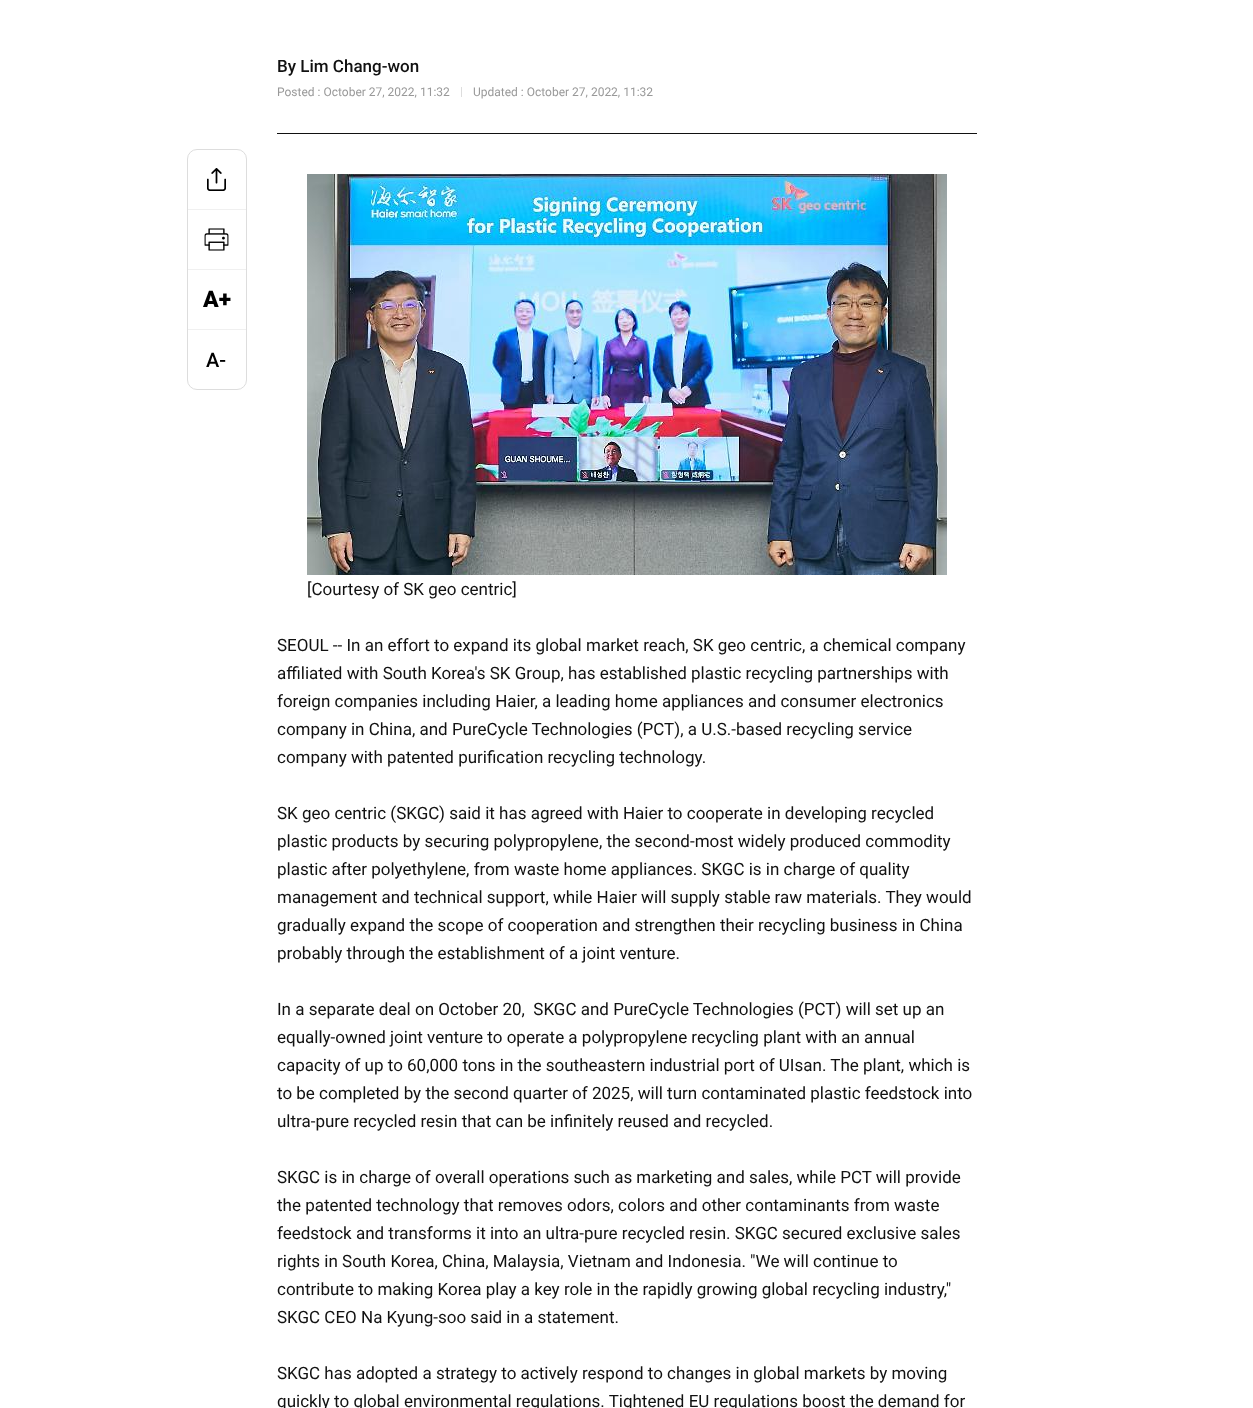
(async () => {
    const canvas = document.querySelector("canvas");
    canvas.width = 1253;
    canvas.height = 1408;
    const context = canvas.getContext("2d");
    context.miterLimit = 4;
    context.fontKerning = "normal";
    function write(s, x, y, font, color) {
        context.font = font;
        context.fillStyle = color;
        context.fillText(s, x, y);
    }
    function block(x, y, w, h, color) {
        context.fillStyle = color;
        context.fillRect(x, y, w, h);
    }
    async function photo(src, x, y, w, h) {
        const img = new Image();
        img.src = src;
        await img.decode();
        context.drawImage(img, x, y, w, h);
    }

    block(0, 0, 1253, 1408, "rgb(255, 255, 255)");
    context.beginPath();
    context.roundRect(187.5, 149.5, 59, 240, 9.5);
    context.strokeStyle = "rgb(221, 221, 221)";
    context.stroke();
    await photo("media/1.png", 207, 168, 19, 23);
    block(188, 209, 58, 1, "rgb(240, 240, 240)");
    await photo("media/2.png", 204, 228, 25, 23);
    block(188, 269, 58, 1, "rgb(240, 240, 240)");
    write("A+", 203, 307, "900 23px Roboto", "rgb(0, 0, 0)");
    block(188, 329, 58, 1, "rgb(240, 240, 240)");
    write("A-", 206, 367, "500 20px Roboto", "rgb(0, 0, 0)");
    block(277, 133, 700, 1, "rgb(17, 17, 17)");
    write("By Lim Chang-won", 277, 72, "500 17px Roboto", "rgb(17, 17, 17)");
    write("Posted : October 27, 2022, 11:32", 277, 96, "12px Roboto", "rgb(153, 153, 153)");
    block(461, 87, 1, 10, "rgb(221, 221, 221)");
    write("Updated : October 27, 2022, 11:32", 473, 96, "12px Roboto", "rgb(153, 153, 153)");
    await photo("media/3.png", 307, 174, 640, 401);
    write("[Courtesy of SK geo centric]", 307, 595, "17px Roboto", "rgb(17, 17, 17)");
    write("SEOUL -- In an effort to expand its global market reach, SK geo centric, a chemical company", 277, 651, "17px Roboto", "rgb(17, 17, 17)");
    write("affiliated with South Korea's SK Group, has established plastic recycling partnerships with", 277, 679, "17px Roboto", "rgb(17, 17, 17)");
    write("foreign companies including Haier, a leading home appliances and consumer electronics", 277, 707, "17px Roboto", "rgb(17, 17, 17)");
    write("company in China, and PureCycle Technologies (PCT), a U.S.-based recycling service", 277, 735, "17px Roboto", "rgb(17, 17, 17)");
    write("company with patented purification recycling technology.", 277, 763, "17px Roboto", "rgb(17, 17, 17)");
    write("SK geo centric (SKGC) said it has agreed with Haier to cooperate in developing recycled", 277, 819, "17px Roboto", "rgb(17, 17, 17)");
    write("plastic products by securing polypropylene, the second-most widely produced commodity", 277, 847, "17px Roboto", "rgb(17, 17, 17)");
    write("plastic after polyethylene, from waste home appliances. SKGC is in charge of quality", 277, 875, "17px Roboto", "rgb(17, 17, 17)");
    write("management and technical support, while Haier will supply stable raw materials. They would", 277, 903, "17px Roboto", "rgb(17, 17, 17)");
    write("gradually expand the scope of cooperation and strengthen their recycling business in China", 277, 931, "17px Roboto", "rgb(17, 17, 17)");
    write("probably through the establishment of a joint venture.", 277, 959, "17px Roboto", "rgb(17, 17, 17)");
    write("In a separate deal on October 20,  SKGC and PureCycle Technologies (PCT) will set up an", 277, 1015, "17px Roboto", "rgb(17, 17, 17)");
    write("equally-owned joint venture to operate a polypropylene recycling plant with an annual", 277, 1043, "17px Roboto", "rgb(17, 17, 17)");
    write("capacity of up to 60,000 tons in the southeastern industrial port of UIsan. The plant, which is", 277, 1071, "17px Roboto", "rgb(17, 17, 17)");
    write("to be completed by the second quarter of 2025, will turn contaminated plastic feedstock into", 277, 1099, "17px Roboto", "rgb(17, 17, 17)");
    write("ultra-pure recycled resin that can be infinitely reused and recycled.", 277, 1127, "17px Roboto", "rgb(17, 17, 17)");
    write("SKGC is in charge of overall operations such as marketing and sales, while PCT will provide", 277, 1183, "17px Roboto", "rgb(17, 17, 17)");
    write("the patented technology that removes odors, colors and other contaminants from waste", 277, 1211, "17px Roboto", "rgb(17, 17, 17)");
    write("feedstock and transforms it into an ultra-pure recycled resin. SKGC secured exclusive sales", 277, 1239, "17px Roboto", "rgb(17, 17, 17)");
    write("rights in South Korea, China, Malaysia, Vietnam and Indonesia. \"We will continue to", 277, 1267, "17px Roboto", "rgb(17, 17, 17)");
    write("contribute to making Korea play a key role in the rapidly growing global recycling industry,\"", 277, 1295, "17px Roboto", "rgb(17, 17, 17)");
    write("SKGC CEO Na Kyung-soo said in a statement.", 277, 1323, "17px Roboto", "rgb(17, 17, 17)");
    write("SKGC has adopted a strategy to actively respond to changes in global markets by moving", 277, 1379, "17px Roboto", "rgb(17, 17, 17)");
    write("quickly to global environmental regulations. Tightened EU regulations boost the demand for", 277, 1407, "17px Roboto", "rgb(17, 17, 17)");
})();
